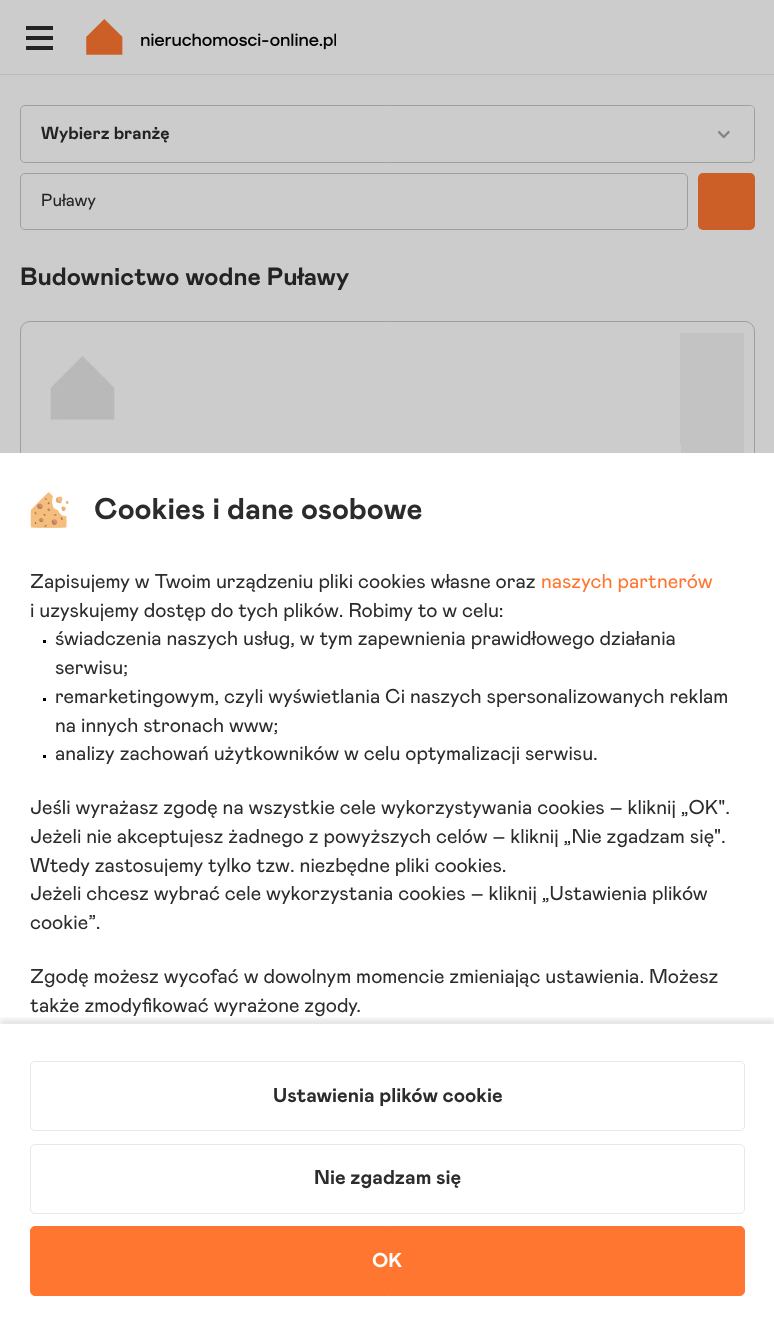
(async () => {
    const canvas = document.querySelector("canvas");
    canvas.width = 774;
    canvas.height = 1333;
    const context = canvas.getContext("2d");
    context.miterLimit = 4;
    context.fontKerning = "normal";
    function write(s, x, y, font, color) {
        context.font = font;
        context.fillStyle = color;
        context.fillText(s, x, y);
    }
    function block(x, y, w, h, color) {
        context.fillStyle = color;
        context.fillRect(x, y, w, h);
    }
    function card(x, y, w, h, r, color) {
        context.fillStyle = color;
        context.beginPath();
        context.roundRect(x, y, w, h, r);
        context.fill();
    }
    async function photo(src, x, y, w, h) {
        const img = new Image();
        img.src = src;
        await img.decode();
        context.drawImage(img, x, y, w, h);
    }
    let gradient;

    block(0, 0, 774, 1333, "rgb(204, 204, 204)");
    block(0, 74, 774, 1, "rgb(186, 186, 186)");
    block(26, 26, 27, 4, "rgb(35, 35, 35)");
    block(26, 36, 27, 4, "rgb(35, 35, 35)");
    block(26, 46, 27, 4, "rgb(35, 35, 35)");
    await photo("media/1.png", 86, 19, 250, 36);
    context.beginPath();
    context.roundRect(20.5, 105.5, 734, 57, 4.5);
    context.strokeStyle = "rgb(159, 159, 159)";
    context.stroke();
    write("Wybierz branżę", 41, 139, "bold 17.5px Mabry", "rgb(35, 35, 35)");
    gradient = context.createLinearGradient(754, 134, 679, 134);
    gradient.addColorStop(0, "rgb(204, 204, 204)");
    gradient.addColorStop(1, "rgba(204, 204, 204, 0)");
    context.fillStyle = gradient;
    context.beginPath();
    context.roundRect(679, 106, 75, 55, [0, 4, 4, 0]);
    context.fill();
    await photo("media/2.png", 718, 130, 12, 9);
    context.beginPath();
    context.roundRect(20.5, 173.5, 667, 56, 4.5);
    context.stroke();
    write("Puławy", 41, 206, "17.5px Mabry", "rgb(35, 35, 35)");
    card(698, 173, 57, 57, 5, "rgb(204, 94, 39)");
    write("Budownictwo wodne Puławy", 20, 285, "bold 25px Mabry", "rgb(35, 35, 35)");
    context.beginPath();
    context.roundRect(20.5, 321.5, 734, 277, 9.5);
    context.stroke();
    block(680, 333, 1, 111, "rgb(195, 195, 195)");
    await photo("media/3.png", 50, 356, 65, 64);
    block(681, 333, 63, 120, "rgb(195, 195, 195)");
    block(0, 453, 774, 880, "rgb(255, 255, 255)");
    await photo("media/4.png", 30, 492, 39, 36);
    write("Cookies i dane osobowe", 94, 519, "bold 30px Mabry", "rgb(44, 44, 44)");
    write("Zapisujemy w Twoim urządzeniu pliki cookies własne oraz", 30, 588, "20px Mabry", "rgb(44, 44, 44)");
    write("naszych partnerów", 541, 588, "20px Mabry", "rgb(255, 118, 49)");
    write("i uzyskujemy dostęp do tych plików. Robimy to w celu:", 30, 617, "20px Mabry", "rgb(44, 44, 44)");
    block(43, 640, 3, 3, "rgb(0, 0, 0)");
    write("świadczenia naszych usług, w tym zapewnienia prawidłowego działania", 55, 645, "20px Mabry", "rgb(44, 44, 44)");
    write("serwisu;", 55, 674, "20px Mabry", "rgb(44, 44, 44)");
    block(43, 698, 3, 3, "rgb(0, 0, 0)");
    write("remarketingowym, czyli wyświetlania Ci naszych spersonalizowanych reklam", 55, 703, "20px Mabry", "rgb(44, 44, 44)");
    write("na innych stronach www;", 55, 732, "20px Mabry", "rgb(44, 44, 44)");
    block(43, 755, 3, 3, "rgb(0, 0, 0)");
    write("analizy zachowań użytkowników w celu optymalizacji serwisu.", 55, 760, "20px Mabry", "rgb(44, 44, 44)");
    write("Jeśli wyrażasz zgodę na wszystkie cele wykorzystywania cookies – kliknij „OK\".", 30, 814, "20px Mabry", "rgb(44, 44, 44)");
    write("Jeżeli nie akceptujesz żadnego z powyższych celów – kliknij „Nie zgadzam się\".", 30, 843, "20px Mabry", "rgb(44, 44, 44)");
    write("Wtedy zastosujemy tylko tzw. niezbędne pliki cookies.", 30, 872, "20px Mabry", "rgb(44, 44, 44)");
    write("Jeżeli chcesz wybrać cele wykorzystania cookies – kliknij „Ustawienia plików", 30, 900, "20px Mabry", "rgb(44, 44, 44)");
    write("cookie”.", 30, 929, "20px Mabry", "rgb(44, 44, 44)");
    write("Zgodę możesz wycofać w dowolnym momencie zmieniając ustawienia. Możesz", 30, 983, "20px Mabry", "rgb(44, 44, 44)");
    context.save();
    context.beginPath();
    context.rect(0, 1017, 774, 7);
    context.clip();
    context.fillStyle = "rgba(0, 0, 0, 0.1)";
    context.filter = "blur(2.5px)";
    context.beginPath();
    context.rect(0, 1019, 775, 310);
    context.fill();
    context.filter = "none";
    context.restore();
    write("także zmodyfikować wyrażone zgody.", 30, 1012, "20px Mabry", "rgb(44, 44, 44)");
    context.beginPath();
    context.roundRect(30.5, 1061.5, 714, 69, 4.5);
    context.strokeStyle = "rgb(232, 232, 232)";
    context.stroke();
    write("Ustawienia plików cookie", 273, 1102, "bold 20px Mabry", "rgb(44, 44, 44)");
    context.beginPath();
    context.roundRect(30.5, 1144.5, 714, 69, 4.5);
    context.stroke();
    write("Nie zgadzam się", 314, 1184, "bold 20px Mabry", "rgb(44, 44, 44)");
    context.fillStyle = "rgb(255, 118, 49)";
    context.beginPath();
    context.roundRect(30.5, 1226.5, 714, 69, 4.5);
    context.fill();
    context.strokeStyle = "rgb(255, 118, 49)";
    context.stroke();
    write("OK", 372, 1267, "bold 20px Mabry", "rgb(255, 255, 255)");
})();
